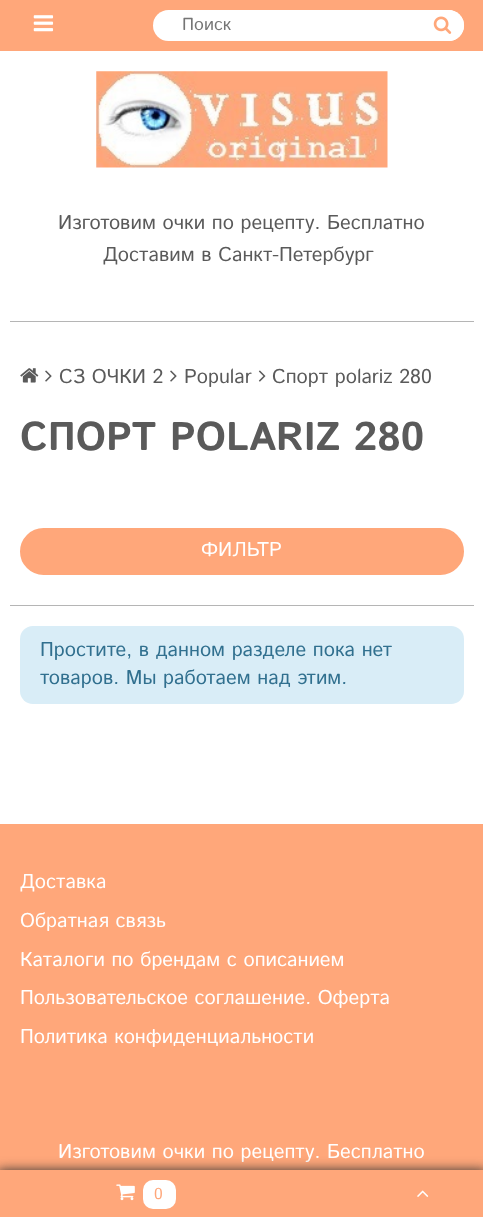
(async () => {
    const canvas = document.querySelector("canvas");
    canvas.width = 483;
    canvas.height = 1217;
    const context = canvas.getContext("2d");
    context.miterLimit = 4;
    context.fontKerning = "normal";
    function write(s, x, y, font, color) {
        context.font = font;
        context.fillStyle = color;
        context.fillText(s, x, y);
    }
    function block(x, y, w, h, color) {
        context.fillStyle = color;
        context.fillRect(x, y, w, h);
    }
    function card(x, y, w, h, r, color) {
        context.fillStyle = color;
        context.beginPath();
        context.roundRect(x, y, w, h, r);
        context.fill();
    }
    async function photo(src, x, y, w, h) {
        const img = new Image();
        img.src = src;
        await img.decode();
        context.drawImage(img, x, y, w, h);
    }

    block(0, 0, 483, 1217, "rgb(255, 167, 122)");
    block(0, 51, 483, 773, "rgb(255, 255, 255)");
    await photo("media/1.png", 33, 15, 21, 17);
    card(153, 10, 311, 31, 15.5, "rgb(255, 255, 255)");
    write("Поиск", 182, 30, "17.5px Istok Web", "rgb(117, 117, 117)");
    context.fillStyle = "rgb(255, 255, 255)";
    context.beginPath();
    context.roundRect(420, 10, 44, 31, [0, 15.5, 15.5, 0]);
    context.fill();
    await photo("media/2.png", 433, 16, 19, 18);
    await photo("media/3.png", 96, 71, 292, 97);
    write("Изготовим очки по рецепту. Бесплатно", 58, 229, "20px Istok Web", "rgb(90, 90, 90)");
    write("Доставим в Санкт-Петербург", 103, 261, "20px Istok Web", "rgb(90, 90, 90)");
    block(10, 321, 464, 1, "rgb(181, 181, 181)");
    await photo("media/4.png", 20, 368, 19, 15);
    await photo("media/5.png", 45, 370, 7, 12);
    write("СЗ ОЧКИ 2", 59, 383, "20px Istok Web", "rgb(90, 90, 90)");
    await photo("media/5.png", 170, 370, 7, 12);
    write("Popular", 184, 383, "20px Istok Web", "rgb(90, 90, 90)");
    await photo("media/6.png", 258, 370, 8, 12);
    write("Спорт polariz 280", 272, 383, "20px Istok Web", "rgb(90, 90, 90)");
    write("СПОРТ POLARIZ 280", 20, 450, "bold 40px Istok Web", "rgb(90, 90, 90)");
    block(10, 605, 464, 1, "rgb(181, 181, 181)");
    context.fillStyle = "rgb(255, 167, 122)";
    context.beginPath();
    context.roundRect(21.5, 529.5, 441, 44, 22);
    context.fill();
    context.strokeStyle = "rgb(255, 167, 122)";
    context.lineWidth = 3;
    context.stroke();
    write("ФИЛЬТР", 201, 556, "20px Istok Web", "rgb(255, 255, 255)");
    card(20, 626, 444, 78, 13, "rgb(217, 237, 247)");
    write("Простите, в данном разделе пока нет", 40, 656, "20px Istok Web", "rgb(49, 112, 143)");
    write("товаров. Мы работаем над этим.", 40, 684, "20px Istok Web", "rgb(49, 112, 143)");
    write("Доставка", 20, 888, "20px Istok Web", "rgb(255, 255, 255)");
    write("Обратная связь", 20, 927, "20px Istok Web", "rgb(255, 255, 255)");
    write("Каталоги по брендам с описанием", 20, 966, "20px Istok Web", "rgb(255, 255, 255)");
    write("Пользовательское соглашение. Оферта", 20, 1004, "20px Istok Web", "rgb(255, 255, 255)");
    write("Политика конфиденциальности", 20, 1043, "20px Istok Web", "rgb(255, 255, 255)");
    write("Изготовим очки по рецепту. Бесплатно", 58, 1158, "20px Istok Web", "rgb(255, 255, 255)");
    context.fillStyle = "rgb(51, 51, 51)";
    context.filter = "blur(6px)";
    context.beginPath();
    context.rect(-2, 1170, 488, 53);
    context.fill();
    context.filter = "none";
    block(0, 1170, 483, 47, "rgb(255, 167, 122)");
    await photo("media/7.png", 116, 1184, 19, 17);
    card(143, 1180, 33, 29, 10, "rgb(255, 255, 255)");
    write("0", 154, 1199, "16px Istok Web", "rgb(255, 167, 122)");
    await photo("media/8.png", 417, 1190, 12, 7);
})();
